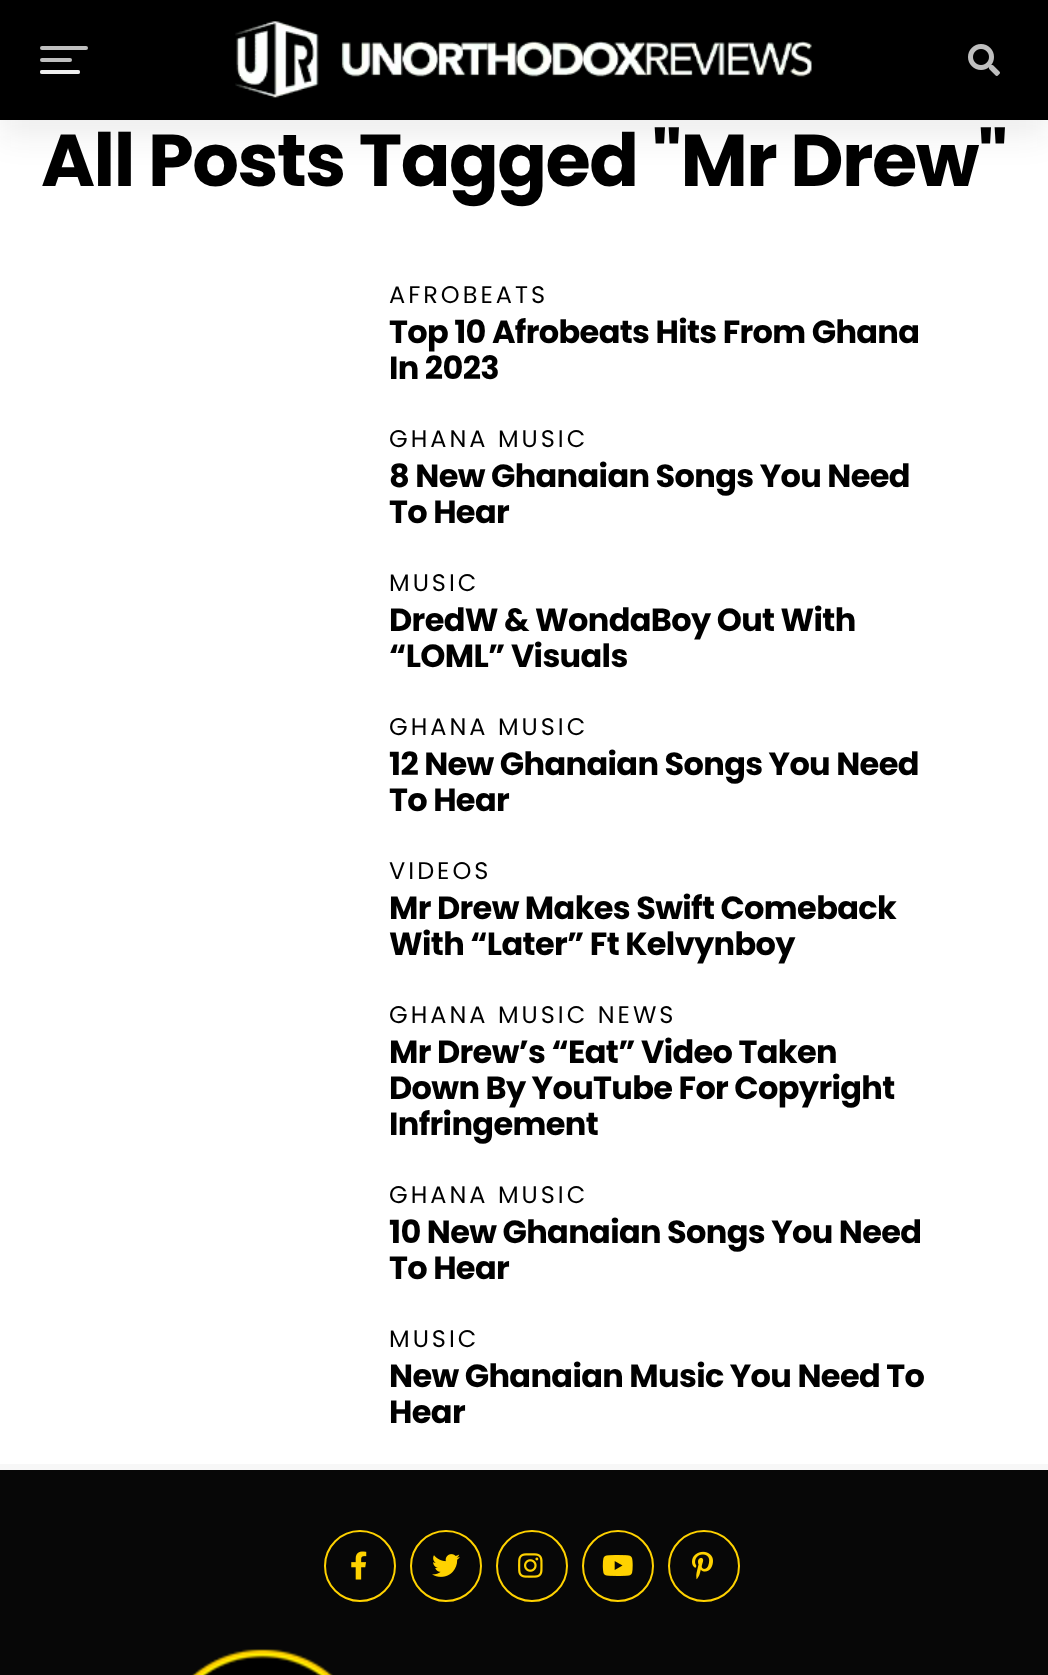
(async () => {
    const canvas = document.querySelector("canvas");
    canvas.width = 1048;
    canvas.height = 1675;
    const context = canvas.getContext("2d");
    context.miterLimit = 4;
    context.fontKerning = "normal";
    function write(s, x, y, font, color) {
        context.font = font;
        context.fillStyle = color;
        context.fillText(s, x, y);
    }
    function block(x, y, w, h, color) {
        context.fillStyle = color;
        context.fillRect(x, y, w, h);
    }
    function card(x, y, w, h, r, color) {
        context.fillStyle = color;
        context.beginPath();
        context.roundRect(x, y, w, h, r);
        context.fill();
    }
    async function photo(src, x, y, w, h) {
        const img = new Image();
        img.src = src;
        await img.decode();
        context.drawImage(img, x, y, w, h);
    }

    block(0, 0, 1048, 1675, "rgb(255, 255, 255)");
    context.fillStyle = "rgba(21, 21, 30, 0.08)";
    context.filter = "blur(16px)";
    context.beginPath();
    context.rect(0, 16, 1048, 120);
    context.fill();
    context.filter = "none";
    block(0, 0, 1048, 120, "rgb(0, 0, 0)");
    card(40, 46, 48, 4, 2, "rgb(191, 191, 191)");
    card(40, 58, 32, 4, 2, "rgb(191, 191, 191)");
    card(40, 70, 40, 4, 2, "rgb(191, 191, 191)");
    card(40, 70, 40, 4, 2, "rgba(255, 255, 255, 0.75)");
    await photo("media/1.png", 235, 21, 577, 77);
    await photo("media/2.png", 968, 44, 32, 32);
    context.letterSpacing = "-1.5px";
    write("All Posts Tagged \"Mr Drew\"", 41, 186, "bold 73.4px Poppins", "rgb(0, 0, 0)");
    context.letterSpacing = "3px";
    write("AFROBEATS", 389, 303, "24px Poppins", "rgb(0, 0, 0)");
    context.letterSpacing = "-0.65px";
    write("Top 10 Afrobeats Hits From Ghana", 389, 343, "bold 32px Poppins", "rgb(0, 0, 0)");
    write("In 2023", 389, 379, "bold 32px Poppins", "rgb(0, 0, 0)");
    context.letterSpacing = "3px";
    write("GHANA MUSIC", 389, 447, "24px Poppins", "rgb(0, 0, 0)");
    context.letterSpacing = "-0.65px";
    write("8 New Ghanaian Songs You Need", 389, 487, "bold 32px Poppins", "rgb(0, 0, 0)");
    write("To Hear", 389, 523, "bold 32px Poppins", "rgb(0, 0, 0)");
    context.letterSpacing = "3px";
    write("MUSIC", 389, 591, "24px Poppins", "rgb(0, 0, 0)");
    context.letterSpacing = "-0.65px";
    write("DredW & WondaBoy Out With", 389, 631, "bold 32px Poppins", "rgb(0, 0, 0)");
    write("“LOML” Visuals", 389, 667, "bold 32px Poppins", "rgb(0, 0, 0)");
    context.letterSpacing = "3px";
    write("GHANA MUSIC", 389, 735, "24px Poppins", "rgb(0, 0, 0)");
    context.letterSpacing = "-0.65px";
    write("12 New Ghanaian Songs You Need", 389, 775, "bold 32px Poppins", "rgb(0, 0, 0)");
    write("To Hear", 389, 811, "bold 32px Poppins", "rgb(0, 0, 0)");
    context.letterSpacing = "3px";
    write("VIDEOS", 389, 879, "24px Poppins", "rgb(0, 0, 0)");
    context.letterSpacing = "-0.65px";
    write("Mr Drew Makes Swift Comeback", 389, 919, "bold 32px Poppins", "rgb(0, 0, 0)");
    write("With “Later” Ft Kelvynboy", 389, 955, "bold 32px Poppins", "rgb(0, 0, 0)");
    context.letterSpacing = "3px";
    write("GHANA MUSIC NEWS", 389, 1023, "24px Poppins", "rgb(0, 0, 0)");
    context.letterSpacing = "-0.65px";
    write("Mr Drew’s “Eat” Video Taken", 389, 1063, "bold 32px Poppins", "rgb(0, 0, 0)");
    write("Down By YouTube For Copyright", 389, 1099, "bold 32px Poppins", "rgb(0, 0, 0)");
    write("Infringement", 389, 1135, "bold 32px Poppins", "rgb(0, 0, 0)");
    context.letterSpacing = "3px";
    write("GHANA MUSIC", 389, 1203, "24px Poppins", "rgb(0, 0, 0)");
    context.letterSpacing = "-0.65px";
    write("10 New Ghanaian Songs You Need", 389, 1243, "bold 32px Poppins", "rgb(0, 0, 0)");
    write("To Hear", 389, 1279, "bold 32px Poppins", "rgb(0, 0, 0)");
    context.letterSpacing = "3px";
    write("MUSIC", 389, 1347, "24px Poppins", "rgb(0, 0, 0)");
    context.letterSpacing = "-0.65px";
    write("New Ghanaian Music You Need To", 389, 1387, "bold 32px Poppins", "rgb(0, 0, 0)");
    write("Hear", 389, 1423, "bold 32px Poppins", "rgb(0, 0, 0)");
    block(0, 1470, 1048, 205, "rgb(7, 7, 7)");
    block(0, 1464, 1048, 6, "rgb(247, 247, 247)");
    context.beginPath();
    context.arc(360, 1566, 35, 0, Math.PI * 2);
    context.strokeStyle = "rgb(255, 210, 0)";
    context.lineWidth = 2;
    context.stroke();
    await photo("media/3.png", 351, 1551, 16, 29);
    context.beginPath();
    context.arc(446, 1566, 35, 0, Math.PI * 2);
    context.stroke();
    await photo("media/4.png", 432, 1554, 28, 23);
    context.beginPath();
    context.arc(532, 1566, 35, 0, Math.PI * 2);
    context.stroke();
    await photo("media/5.png", 518, 1553, 25, 25);
    context.beginPath();
    context.arc(618, 1566, 35, 0, Math.PI * 2);
    context.stroke();
    await photo("media/6.png", 602, 1555, 31, 21);
    context.beginPath();
    context.arc(704, 1566, 35, 0, Math.PI * 2);
    context.stroke();
    await photo("media/7.png", 692, 1551, 21, 29);
    await photo("media/8.png", 191, 1649, 142, 26);
})();
